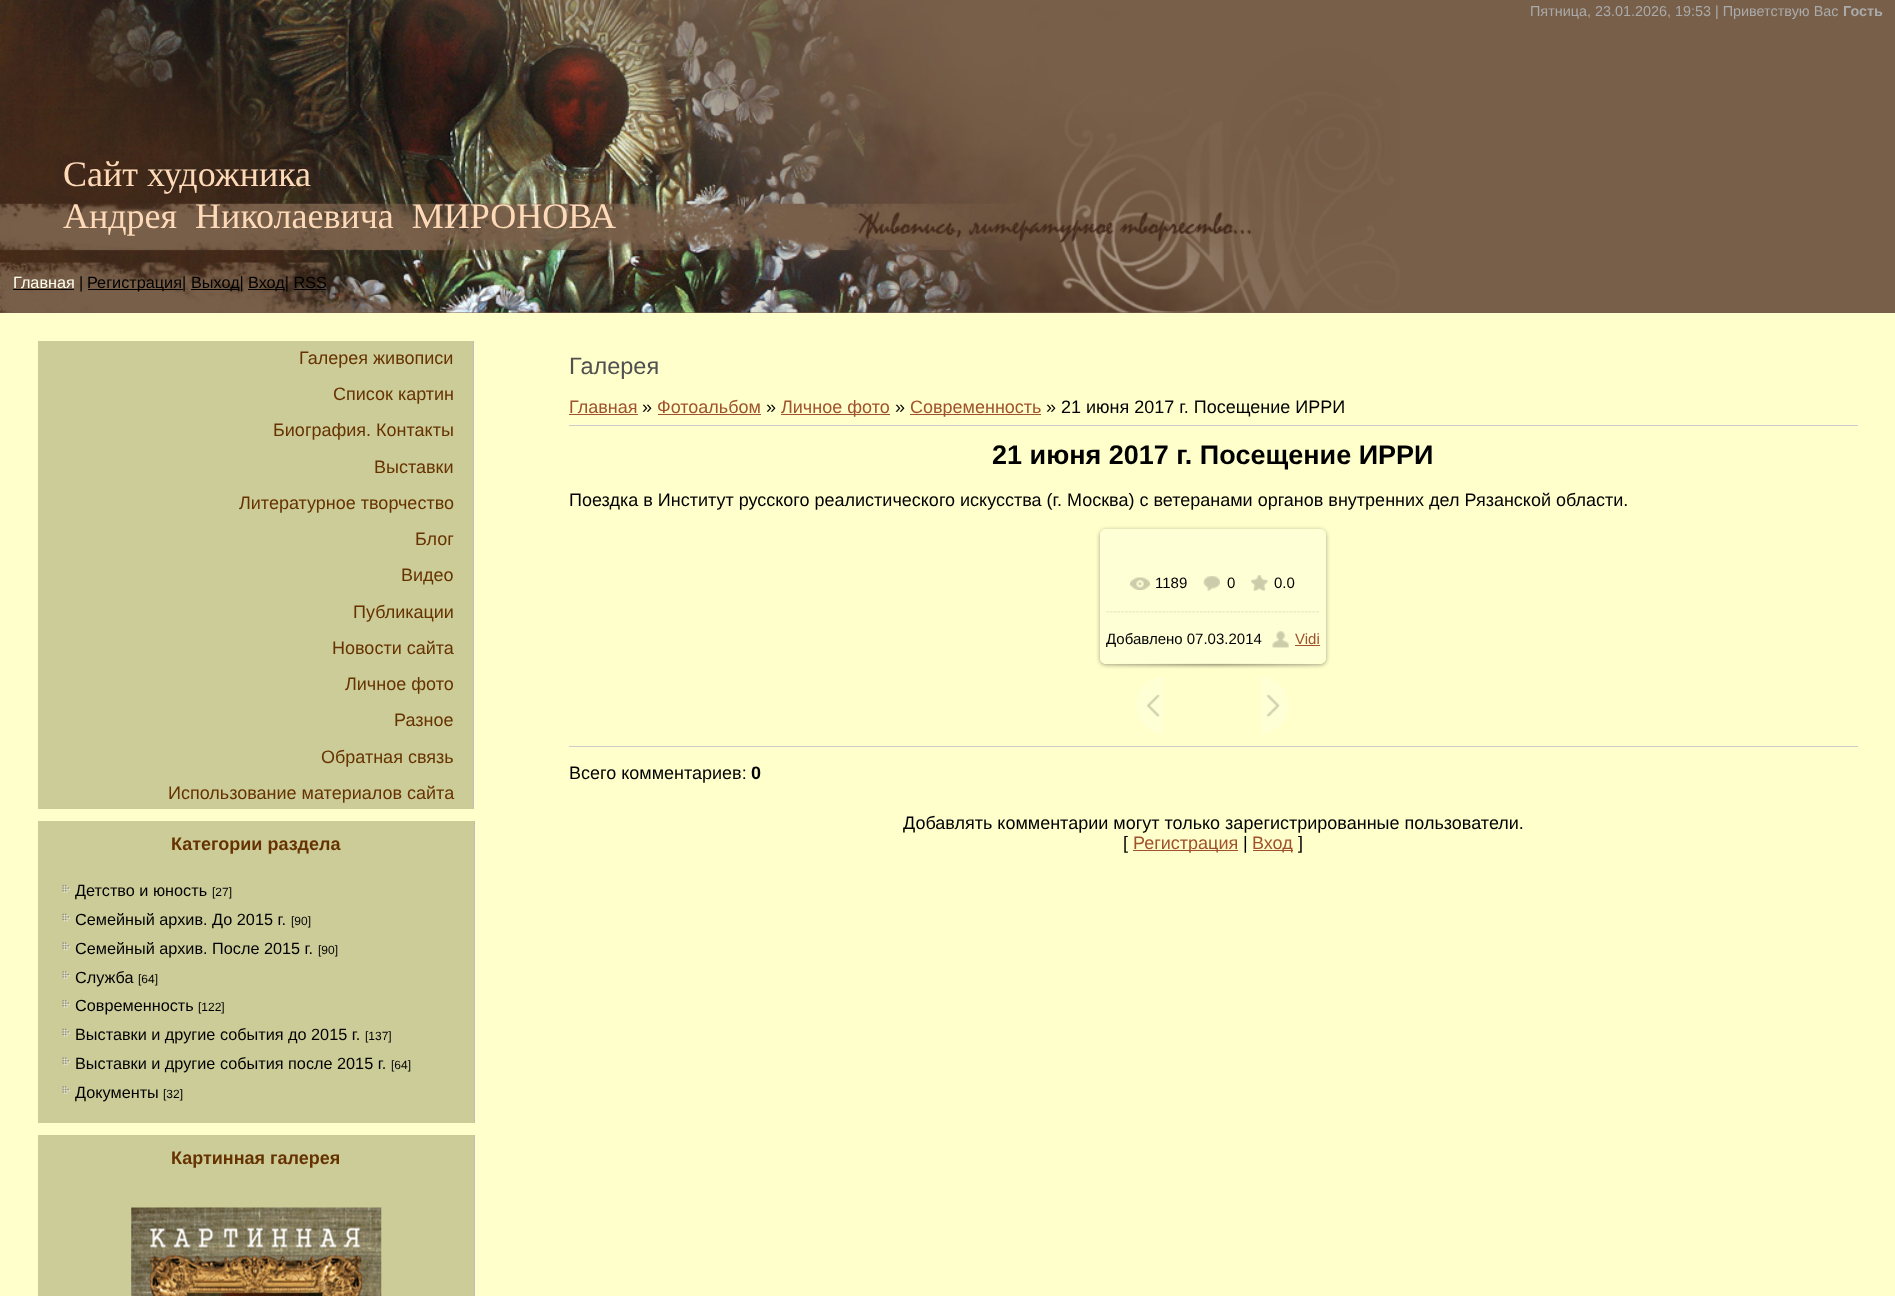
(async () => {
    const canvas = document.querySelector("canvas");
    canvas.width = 1895;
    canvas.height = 1296;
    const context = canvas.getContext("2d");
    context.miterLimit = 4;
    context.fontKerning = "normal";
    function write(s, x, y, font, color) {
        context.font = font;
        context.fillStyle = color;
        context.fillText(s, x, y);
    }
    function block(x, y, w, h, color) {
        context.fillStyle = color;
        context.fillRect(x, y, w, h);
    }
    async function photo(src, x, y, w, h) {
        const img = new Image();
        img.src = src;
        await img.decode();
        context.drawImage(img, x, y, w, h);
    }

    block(0, 0, 1895, 1296, "rgb(255, 255, 204)");
    block(0, 0, 1895, 313, "rgb(120, 95, 73)");
    await photo("media/1.png", 0, 0, 1400, 313);
    write("Пятница, 23.01.2026, 19:53 | Приветствую Вас", 1530, 16, "14.4px Liberation Sans", "rgb(170, 170, 170)");
    write("Гость", 1843, 16, "bold 14.4px Liberation Sans", "rgb(170, 170, 170)");
    write("Сайт художника", 63, 186, "36px Liberation Serif", "rgb(255, 218, 185)");
    write("Андрея  Николаевича  МИРОНОВА", 63, 228, "36px Liberation Serif", "rgb(255, 218, 185)");
    write("Главная", 13, 288, "16.25px Liberation Sans", "rgb(255, 255, 240)");
    block(13, 289, 61, 1, "rgb(0, 0, 0)");
    write("|", 79, 288, "16.25px Liberation Sans", "rgb(0, 0, 0)");
    block(88, 289, 95, 1, "rgb(0, 0, 0)");
    write("Регистрация|", 87, 288, "16.25px Liberation Sans", "rgb(0, 0, 0)");
    block(191, 289, 48, 1, "rgb(0, 0, 0)");
    write("Выход|", 191, 288, "16.25px Liberation Sans", "rgb(0, 0, 0)");
    block(248, 289, 37, 1, "rgb(0, 0, 0)");
    write("Вход| RSS", 248, 288, "16.25px Liberation Sans", "rgb(0, 0, 0)");
    block(294, 289, 32, 1, "rgb(0, 0, 0)");
    block(38, 341, 435, 468, "rgb(204, 204, 153)");
    block(473, 341, 1, 468, "rgb(189, 189, 189)");
    write("Галерея живописи", 299, 364, "18px Liberation Sans", "rgb(102, 51, 0)");
    write("Список картин", 333, 400, "18px Liberation Sans", "rgb(102, 51, 0)");
    write("Биография. Контакты", 273, 436, "18px Liberation Sans", "rgb(102, 51, 0)");
    write("Выставки", 374, 473, "18px Liberation Sans", "rgb(102, 51, 0)");
    write("Литературное творчество", 239, 509, "18px Liberation Sans", "rgb(102, 51, 0)");
    write("Блог", 415, 545, "18px Liberation Sans", "rgb(102, 51, 0)");
    write("Видео", 401, 581, "18px Liberation Sans", "rgb(102, 51, 0)");
    write("Публикации", 353, 618, "18px Liberation Sans", "rgb(102, 51, 0)");
    write("Новости сайта", 332, 654, "18px Liberation Sans", "rgb(102, 51, 0)");
    write("Личное фото", 345, 690, "18px Liberation Sans", "rgb(102, 51, 0)");
    write("Разное", 394, 726, "18px Liberation Sans", "rgb(102, 51, 0)");
    write("Обратная связь", 321, 763, "18px Liberation Sans", "rgb(102, 51, 0)");
    write("Использование материалов сайта", 168, 799, "18px Liberation Sans", "rgb(102, 51, 0)");
    block(38, 821, 436, 302, "rgb(204, 204, 153)");
    block(474, 821, 1, 302, "rgb(189, 189, 189)");
    write("Категории раздела", 171, 850, "bold 18px Liberation Sans", "rgb(102, 51, 0)");
    await photo("media/2.png", 62, 884, 9, 9);
    write("Детство и юность", 75, 896, "16.25px Liberation Sans", "rgb(0, 0, 0)");
    write("[27]", 212, 896, "12px Liberation Sans", "rgb(0, 0, 0)");
    await photo("media/3.png", 62, 913, 9, 9);
    write("Семейный архив. До 2015 г.", 75, 925, "16.25px Liberation Sans", "rgb(0, 0, 0)");
    write("[90]", 291, 925, "12px Liberation Sans", "rgb(0, 0, 0)");
    await photo("media/4.png", 62, 942, 9, 9);
    write("Семейный архив. После 2015 г.", 75, 954, "16.25px Liberation Sans", "rgb(0, 0, 0)");
    write("[90]", 318, 954, "12px Liberation Sans", "rgb(0, 0, 0)");
    await photo("media/5.png", 62, 971, 9, 8);
    write("Служба", 75, 983, "16.25px Liberation Sans", "rgb(0, 0, 0)");
    write("[64]", 138, 983, "12px Liberation Sans", "rgb(0, 0, 0)");
    await photo("media/2.png", 62, 999, 9, 9);
    write("Современность", 75, 1011, "16.25px Liberation Sans", "rgb(0, 0, 0)");
    write("[122]", 198, 1011, "12px Liberation Sans", "rgb(0, 0, 0)");
    await photo("media/3.png", 62, 1028, 9, 9);
    write("Выставки и другие события до 2015 г.", 75, 1040, "16.25px Liberation Sans", "rgb(0, 0, 0)");
    write("[137]", 365, 1040, "12px Liberation Sans", "rgb(0, 0, 0)");
    await photo("media/4.png", 62, 1057, 9, 9);
    write("Выставки и другие события после 2015 г.", 75, 1069, "16.25px Liberation Sans", "rgb(0, 0, 0)");
    write("[64]", 391, 1069, "12px Liberation Sans", "rgb(0, 0, 0)");
    await photo("media/5.png", 62, 1086, 9, 8);
    write("Документы", 75, 1098, "16.25px Liberation Sans", "rgb(0, 0, 0)");
    write("[32]", 163, 1098, "12px Liberation Sans", "rgb(0, 0, 0)");
    block(38, 1135, 436, 161, "rgb(204, 204, 153)");
    block(474, 1135, 1, 161, "rgb(189, 189, 189)");
    write("Картинная галерея", 171, 1164, "bold 18px Liberation Sans", "rgb(102, 51, 0)");
    await photo("media/6.png", 131, 1207, 251, 89);
    write("Галерея", 569, 374, "23.5px Liberation Sans", "rgb(80, 80, 80)");
    write("Главная", 569, 413, "18px Liberation Sans", "rgb(160, 82, 45)");
    block(569, 414, 69, 1, "rgb(160, 82, 45)");
    write("»", 642, 413, "18px Liberation Sans", "rgb(0, 0, 0)");
    write("Фотоальбом", 657, 413, "18px Liberation Sans", "rgb(160, 82, 45)");
    block(658, 414, 103, 1, "rgb(160, 82, 45)");
    write("»", 766, 413, "18px Liberation Sans", "rgb(0, 0, 0)");
    block(781, 414, 109, 1, "rgb(160, 82, 45)");
    write("Личное фото", 781, 413, "18px Liberation Sans", "rgb(160, 82, 45)");
    write("»", 895, 413, "18px Liberation Sans", "rgb(0, 0, 0)");
    block(910, 414, 131, 1, "rgb(160, 82, 45)");
    write("Современность", 910, 413, "18px Liberation Sans", "rgb(160, 82, 45)");
    write("» 21 июня 2017 г. Посещение ИРРИ", 1046, 413, "18px Liberation Sans", "rgb(0, 0, 0)");
    block(569, 425, 1289, 1, "rgb(204, 204, 204)");
    write("21 июня 2017 г. Посещение ИРРИ", 992, 464, "bold 27px Liberation Sans", "rgb(0, 0, 0)");
    write("Поездка в Институт русского реалистического искусства (г. Москва) с ветеранами органов внутренних дел Рязанской области.", 569, 506, "18px Liberation Sans", "rgb(0, 0, 0)");
    context.save();
    context.beginPath();
    context.moveTo(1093, 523);
    context.lineTo(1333, 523);
    context.lineTo(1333, 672);
    context.lineTo(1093, 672);
    context.closePath();
    context.moveTo(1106, 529);
    context.lineTo(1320, 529);
    context.bezierCurveTo(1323.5, 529, 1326, 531.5, 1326, 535);
    context.lineTo(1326, 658);
    context.bezierCurveTo(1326, 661.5, 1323.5, 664, 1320, 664);
    context.lineTo(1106, 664);
    context.bezierCurveTo(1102.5, 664, 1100, 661.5, 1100, 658);
    context.lineTo(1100, 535);
    context.bezierCurveTo(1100, 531.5, 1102.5, 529, 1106, 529);
    context.closePath();
    context.clip("evenodd");
    context.fillStyle = "rgba(0, 0, 0, 0.37)";
    context.filter = "blur(2px)";
    context.beginPath();
    context.roundRect(1100, 530, 226, 135, 6);
    context.fill();
    context.filter = "none";
    context.restore();
    await photo("media/7.png", 1100, 529, 226, 135);
    await photo("media/8.png", 1130, 577, 20, 13);
    write("1189", 1155, 588, "15px Liberation Sans", "rgb(0, 0, 0)");
    await photo("media/9.png", 1203, 576, 17, 15);
    write("0", 1227, 588, "15px Liberation Sans", "rgb(0, 0, 0)");
    await photo("media/10.png", 1251, 575, 17, 16);
    write("0.0", 1274, 588, "15px Liberation Sans", "rgb(0, 0, 0)");
    await photo("media/11.png", 1106, 611, 213, 2);
    write("Добавлено 07.03.2014", 1106, 644, "15px Liberation Sans", "rgb(0, 0, 0)");
    await photo("media/12.png", 1272, 631, 17, 17);
    write("Vidi", 1295, 644, "15px Liberation Sans", "rgb(160, 82, 45)");
    block(1295, 645, 25, 1, "rgb(160, 82, 45)");
    await photo("media/13.png", 1116, 663, 195, 5);
    await photo("media/14.png", 1136, 676, 28, 58);
    await photo("media/15.png", 1261, 676, 28, 58);
    block(569, 746, 1289, 1, "rgb(204, 204, 204)");
    write("Всего комментариев:", 569, 779, "18px Liberation Sans", "rgb(0, 0, 0)");
    write("0", 751, 779, "bold 18px Liberation Sans", "rgb(0, 0, 0)");
    write("Добавлять комментарии могут только зарегистрированные пользователи.", 903, 829, "18px Liberation Sans", "rgb(0, 0, 0)");
    write("[", 1123, 849, "18px Liberation Sans", "rgb(0, 0, 0)");
    block(1133, 850, 105, 1, "rgb(160, 82, 45)");
    write("Регистрация", 1133, 849, "18px Liberation Sans", "rgb(160, 82, 45)");
    write("|", 1243, 849, "18px Liberation Sans", "rgb(0, 0, 0)");
    block(1253, 850, 40, 1, "rgb(160, 82, 45)");
    write("Вход", 1252, 849, "18px Liberation Sans", "rgb(160, 82, 45)");
    write("]", 1298, 849, "18px Liberation Sans", "rgb(0, 0, 0)");
})();
